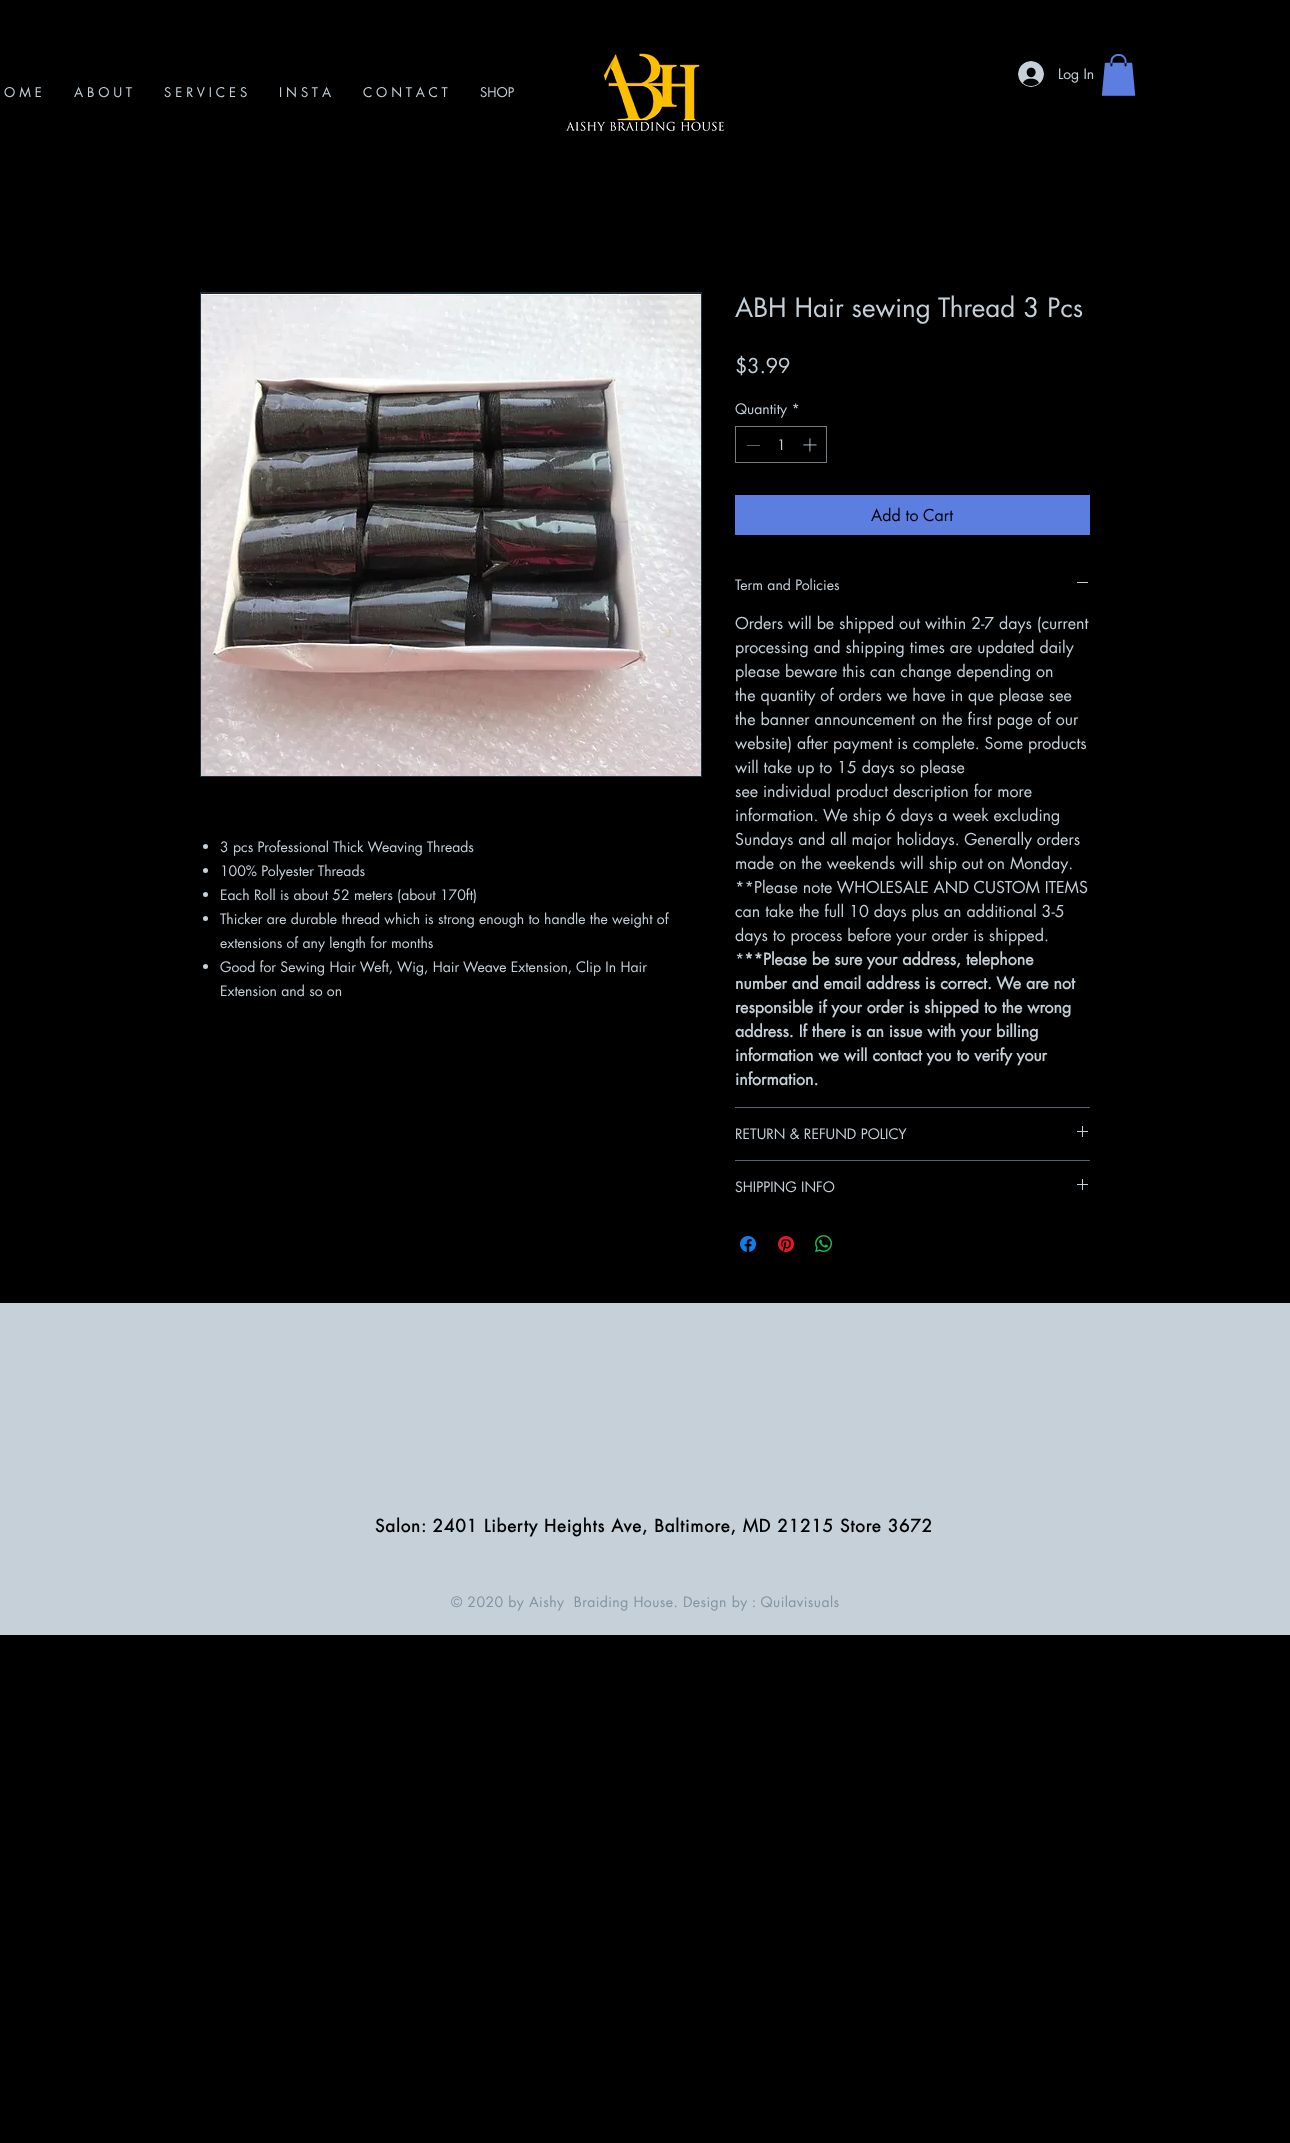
(async () => {
    const canvas = document.querySelector("canvas");
    canvas.width = 1290;
    canvas.height = 2143;
    const context = canvas.getContext("2d");
    context.miterLimit = 4;
    context.fontKerning = "normal";
    function write(s, x, y, font, color) {
        context.font = font;
        context.fillStyle = color;
        context.fillText(s, x, y);
    }
    function block(x, y, w, h, color) {
        context.fillStyle = color;
        context.fillRect(x, y, w, h);
    }
    async function photo(src, x, y, w, h) {
        const img = new Image();
        img.src = src;
        await img.decode();
        context.drawImage(img, x, y, w, h);
    }

    block(0, 0, 1290, 2143, "rgb(0, 0, 0)");
    await photo("media/1.png", 566, 53, 158, 78);
    await photo("media/2.png", 1018, 61, 26, 26);
    write("Log In", 1058, 79, "14px futura", "rgb(197, 208, 217)");
    await photo("media/3.png", 1101, 54, 35, 42);
    write("O M E", 4, 97, "13px futura", "rgb(197, 208, 217)");
    write("A B O U T", 74, 97, "13px futura", "rgb(197, 208, 217)");
    write("S E R V I C E S", 164, 97, "13px futura", "rgb(197, 208, 217)");
    write("I N S T A", 279, 97, "13px futura", "rgb(197, 208, 217)");
    write("C O N T A C T", 363, 97, "13px futura", "rgb(197, 208, 217)");
    write("SHOP", 480, 97, "13px futura", "rgb(197, 208, 217)");
    context.strokeStyle = "rgb(28, 49, 66)";
    context.strokeRect(200.5, 292.5, 501, 484);
    await photo("media/4.png", 201, 293, 500, 483);
    context.beginPath();
    context.arc(205.5, 846.5, 2.5, 0, Math.PI * 2);
    context.fill();
    write("3 pcs Professional Thick Weaving Threads", 220, 852, "14px futura", "rgb(197, 208, 217)");
    context.beginPath();
    context.arc(205.5, 870.5, 2.5, 0, Math.PI * 2);
    context.fill();
    write("100% Polyester Threads", 220, 876, "14px futura", "rgb(197, 208, 217)");
    context.beginPath();
    context.arc(205.5, 894.5, 2.5, 0, Math.PI * 2);
    context.fill();
    write("Each Roll is about 52 meters (about 170ft)", 220, 900, "14px futura", "rgb(197, 208, 217)");
    context.beginPath();
    context.arc(205.5, 918.5, 2.5, 0, Math.PI * 2);
    context.fill();
    write("Thicker are durable thread which is strong enough to handle the weight of", 220, 924, "14px futura", "rgb(197, 208, 217)");
    write("extensions of any length for months", 220, 948, "14px futura", "rgb(197, 208, 217)");
    context.beginPath();
    context.arc(205.5, 966.5, 2.5, 0, Math.PI * 2);
    context.fill();
    write("Good for Sewing Hair Weft, Wig, Hair Weave Extension, Clip In Hair", 220, 972, "14px futura", "rgb(197, 208, 217)");
    write("Extension and so on", 220, 996, "14px futura", "rgb(197, 208, 217)");
    write("ABH Hair sewing Thread 3 Pcs", 735, 317, "26px futura", "rgb(197, 208, 217)");
    write("$3.99", 735, 373, "20px futura", "rgb(197, 208, 217)");
    write("Quantity *", 735, 414, "14px futura", "rgb(197, 208, 217)");
    context.strokeStyle = "rgb(118, 125, 130)";
    context.strokeRect(735.5, 426.5, 91, 36);
    block(747, 445, 13, 1, "rgb(100, 100, 100)");
    write("1", 777, 450, "14px futura", "rgb(197, 208, 217)");
    await photo("media/5.png", 803, 438, 14, 14);
    block(735, 495, 355, 40, "rgb(91, 126, 224)");
    write("Add to Cart", 871, 521, "16px futura", "rgb(0, 0, 0)");
    block(735, 1107, 355, 1, "rgb(81, 99, 113)");
    write("Term and Policies", 735, 590, "14px futura", "rgb(197, 208, 217)");
    block(1077, 582, 11, 1, "rgb(197, 208, 217)");
    write("Orders will be shipped out within 2-7 days (current", 735, 629, "16px futura", "rgb(197, 208, 217)");
    write("processing and shipping times are updated daily", 735, 653, "16px futura", "rgb(197, 208, 217)");
    write("please beware this can change depending on", 735, 677, "16px futura", "rgb(197, 208, 217)");
    write("the quantity of orders we have in que please see", 735, 701, "16px futura", "rgb(197, 208, 217)");
    write("the banner announcement on the first page of our", 735, 725, "16px futura", "rgb(197, 208, 217)");
    write("website) after payment is complete. Some products", 735, 749, "16px futura", "rgb(197, 208, 217)");
    write("will take up to 15 days so please", 735, 773, "16px futura", "rgb(197, 208, 217)");
    write("see individual product description for more", 735, 797, "16px futura", "rgb(197, 208, 217)");
    write("information. We ship 6 days a week excluding", 735, 821, "16px futura", "rgb(197, 208, 217)");
    write("Sundays and all major holidays. Generally orders", 735, 845, "16px futura", "rgb(197, 208, 217)");
    write("made on the weekends will ship out on Monday.", 735, 869, "16px futura", "rgb(197, 208, 217)");
    write("**Please note WHOLESALE AND CUSTOM ITEMS", 735, 893, "16px futura", "rgb(197, 208, 217)");
    write("can take the full 10 days plus an additional 3-5", 735, 917, "16px futura", "rgb(197, 208, 217)");
    write("days to process before your order is shipped.", 735, 941, "16px futura", "rgb(197, 208, 217)");
    write("*", 735, 965, "16px futura", "rgb(197, 208, 217)");
    write("**Please be sure your address, telephone", 744, 965, "bold 16px futura", "rgb(197, 208, 217)");
    write("number and email address is correct. We are not", 735, 989, "bold 16px futura", "rgb(197, 208, 217)");
    write("responsible if your order is shipped to the wrong", 735, 1013, "bold 16px futura", "rgb(197, 208, 217)");
    write("address. If there is an issue with your billing", 735, 1037, "bold 16px futura", "rgb(197, 208, 217)");
    write("information we will contact you to verify your", 735, 1061, "bold 16px futura", "rgb(197, 208, 217)");
    write("information.", 735, 1085, "bold 16px futura", "rgb(197, 208, 217)");
    block(735, 1160, 355, 1, "rgb(81, 99, 113)");
    write("RETURN & REFUND POLICY", 735, 1139, "14px futura", "rgb(197, 208, 217)");
    await photo("media/6.png", 1077, 1126, 11, 11);
    write("SHIPPING INFO", 735, 1192, "14px futura", "rgb(197, 208, 217)");
    await photo("media/6.png", 1077, 1179, 11, 11);
    await photo("media/7.png", 740, 1236, 16, 16);
    await photo("media/8.png", 778, 1236, 16, 16);
    await photo("media/9.png", 815, 1235, 17, 17);
    block(0, 1303, 1290, 332, "rgb(197, 208, 217)");
    context.letterSpacing = "0.85px";
    write("Salon: 2401 Liberty Heights Ave, Baltimore, MD 21215 Store 3672", 375, 1532, "bold 17px futura", "rgb(0, 0, 0)");
    context.letterSpacing = "0.42px";
    write("© 2020 by Aishy  Braiding House. Design by : Quilavisuals", 451, 1607, "14px futura", "rgb(130, 147, 161)");
})();
